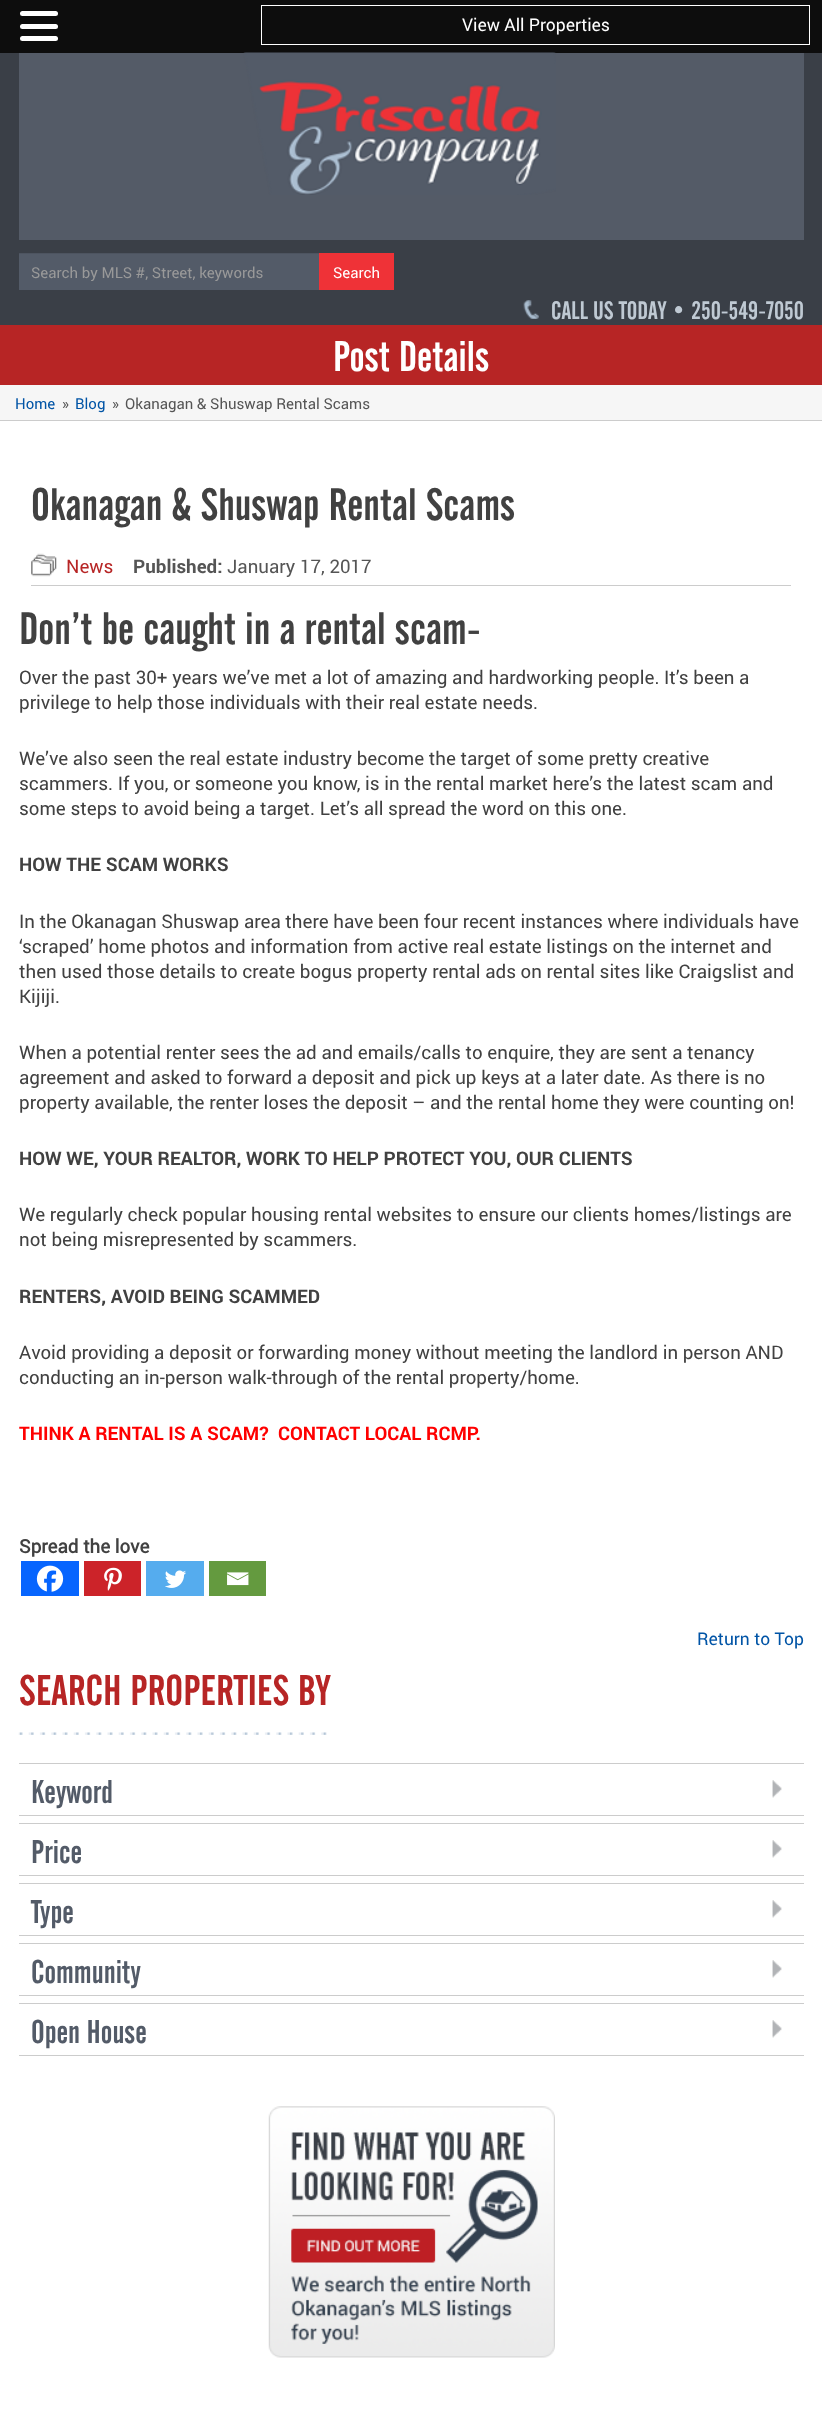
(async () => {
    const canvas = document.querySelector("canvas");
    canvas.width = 822;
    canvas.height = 2413;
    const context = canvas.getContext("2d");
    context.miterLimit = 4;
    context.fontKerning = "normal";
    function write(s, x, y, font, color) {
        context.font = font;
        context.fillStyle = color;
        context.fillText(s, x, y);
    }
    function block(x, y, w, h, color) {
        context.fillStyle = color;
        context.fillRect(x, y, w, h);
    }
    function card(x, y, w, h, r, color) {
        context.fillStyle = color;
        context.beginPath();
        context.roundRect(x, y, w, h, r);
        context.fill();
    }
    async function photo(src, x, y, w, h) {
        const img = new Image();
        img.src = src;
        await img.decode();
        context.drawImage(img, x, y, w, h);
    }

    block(0, 0, 822, 2413, "rgb(255, 255, 255)");
    block(0, 0, 822, 53, "rgb(13, 13, 13)");
    context.strokeStyle = "rgb(255, 255, 255)";
    context.strokeRect(261.5, 5.5, 548, 39);
    write("View All Properties", 462, 31, "17.5px roboto", "rgb(255, 255, 255)");
    card(20, 11, 38, 5, 2.5, "rgb(255, 255, 255)");
    card(20, 24, 38, 5, 2.5, "rgb(255, 255, 255)");
    card(20, 36, 38, 5, 2.5, "rgb(255, 255, 255)");
    block(0, 53, 822, 272, "rgb(58, 63, 71)");
    block(19, 53, 785, 187, "rgb(84, 91, 103)");
    await photo("media/1.png", 243, 52, 313, 143);
    block(19, 254, 300, 36, "rgb(83, 91, 104)");
    block(19, 253, 300, 1, "rgb(77, 84, 96)");
    context.save();
    context.beginPath();
    context.rect(31, 261, 275, 20);
    context.clip();
    write("Search by MLS #, Street, keywords", 31, 278, "15px roboto", "rgb(153, 153, 153)");
    context.restore();
    block(319, 253, 75, 37, "rgb(239, 50, 55)");
    write("Search", 333, 278, "15px roboto", "rgb(255, 255, 255)");
    await photo("media/2.png", 523, 300, 16, 19);
    write("CALL US TODAY • 250-549-7050", 551, 319, "25px 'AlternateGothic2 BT'", "rgb(191, 201, 211)");
    block(0, 325, 822, 60, "rgb(183, 37, 37)");
    write("Post Details", 333, 371, "42.5px 'AlternateGothic2 BT'", "rgb(255, 255, 255)");
    block(0, 385, 822, 35, "rgb(246, 246, 246)");
    block(0, 420, 822, 1, "rgb(204, 204, 204)");
    write("Home", 15, 409, "15px roboto", "rgb(0, 84, 166)");
    write("»", 62, 409, "15px roboto", "rgb(85, 85, 85)");
    write("Blog", 75, 409, "15px roboto", "rgb(0, 84, 166)");
    write("»", 112, 409, "15px roboto", "rgb(85, 85, 85)");
    write("Okanagan & Shuswap Rental Scams", 125, 409, "15px roboto", "rgb(85, 85, 85)");
    write("Okanagan & Shuswap Rental Scams", 31, 520, "45px 'AlternateGothic2 BT'", "rgb(65, 65, 65)");
    block(31, 585, 760, 1, "rgb(204, 204, 204)");
    await photo("media/3.png", 31, 553, 26, 24);
    write("News", 66, 573, "18.75px roboto", "rgb(183, 37, 37)");
    write("Published:", 133, 573, "bold 18.75px roboto", "rgb(85, 85, 85)");
    write("January 17, 2017", 227, 573, "18.75px roboto", "rgb(85, 85, 85)");
    write("Don’t be caught in a rental scam-", 19, 644, "45px 'AlternateGothic2 BT'", "rgb(65, 65, 65)");
    write("Over the past 30+ years we’ve met a lot of amazing and hardworking people. It’s been a", 19, 684, "18.75px roboto", "rgb(65, 65, 65)");
    write("privilege to help those individuals with their real estate needs.", 19, 709, "18.75px roboto", "rgb(65, 65, 65)");
    write("We’ve also seen the real estate industry become the target of some pretty creative", 19, 765, "18.75px roboto", "rgb(65, 65, 65)");
    write("scammers. If you, or someone you know, is in the rental market here’s the latest scam and", 19, 790, "18.75px roboto", "rgb(65, 65, 65)");
    write("some steps to avoid being a target. Let’s all spread the word on this one.", 19, 815, "18.75px roboto", "rgb(65, 65, 65)");
    write("HOW THE SCAM WORKS", 19, 871, "bold 18.75px roboto", "rgb(65, 65, 65)");
    write("In the Okanagan Shuswap area there have been four recent instances where individuals have", 19, 928, "18.75px roboto", "rgb(65, 65, 65)");
    write("‘scraped’ home photos and information from active real estate listings on the internet and", 19, 953, "18.75px roboto", "rgb(65, 65, 65)");
    write("then used those details to create bogus property rental ads on rental sites like Craigslist and", 19, 978, "18.75px roboto", "rgb(65, 65, 65)");
    write("Kijiji.", 19, 1003, "18.75px roboto", "rgb(65, 65, 65)");
    write("When a potential renter sees the ad and emails/calls to enquire, they are sent a tenancy", 19, 1059, "18.75px roboto", "rgb(65, 65, 65)");
    write("agreement and asked to forward a deposit and pick up keys at a later date. As there is no", 19, 1084, "18.75px roboto", "rgb(65, 65, 65)");
    write("property available, the renter loses the deposit – and the rental home they were counting on!", 19, 1109, "18.75px roboto", "rgb(65, 65, 65)");
    write("HOW WE, YOUR REALTOR, WORK TO HELP PROTECT YOU, OUR CLIENTS", 19, 1165, "bold 18.75px roboto", "rgb(65, 65, 65)");
    write("We regularly check popular housing rental websites to ensure our clients homes/listings are", 19, 1221, "18.75px roboto", "rgb(65, 65, 65)");
    write("not being misrepresented by scammers.", 19, 1246, "18.75px roboto", "rgb(65, 65, 65)");
    write("RENTERS, AVOID BEING SCAMMED", 19, 1303, "bold 18.75px roboto", "rgb(65, 65, 65)");
    write("Avoid providing a deposit or forwarding money without meeting the landlord in person AND", 19, 1359, "18.75px roboto", "rgb(65, 65, 65)");
    write("conducting an in-person walk-through of the rental property/home.", 19, 1384, "18.75px roboto", "rgb(65, 65, 65)");
    write("THINK A RENTAL IS A SCAM?  CONTACT LOCAL RCMP.", 19, 1440, "bold 18.75px roboto", "rgb(255, 0, 0)");
    write("Spread the love", 19, 1553, "bold 18.75px 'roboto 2'", "rgb(65, 65, 65)");
    block(21, 1561, 58, 35, "rgb(7, 101, 254)");
    await photo("media/4.png", 36, 1565, 28, 27);
    block(84, 1561, 57, 35, "rgb(204, 35, 41)");
    await photo("media/5.png", 104, 1567, 18, 24);
    block(146, 1561, 58, 35, "rgb(85, 172, 238)");
    await photo("media/6.png", 165, 1570, 21, 18);
    block(209, 1561, 57, 35, "rgb(100, 154, 63)");
    await photo("media/7.png", 227, 1572, 22, 14);
    write("Return to Top", 697, 1645, "17.5px roboto", "rgb(0, 84, 166)");
    await photo("media/8.png", 18, 1732, 309, 3);
    write("SEARCH PROPERTIES BY", 19, 1705, "42.5px 'AlternateGothic2 BT'", "rgb(183, 37, 37)");
    block(19, 1763, 785, 1, "rgb(204, 204, 204)");
    block(19, 1815, 785, 1, "rgb(204, 204, 204)");
    write("Keyword", 31, 1803, "32.5px 'AlternateGothic2 BT'", "rgb(83, 91, 104)");
    await photo("media/9.png", 772, 1780, 10, 18);
    block(19, 1823, 785, 1, "rgb(204, 204, 204)");
    block(19, 1875, 785, 1, "rgb(204, 204, 204)");
    write("Price", 31, 1863, "32.5px 'AlternateGothic2 BT'", "rgb(83, 91, 104)");
    await photo("media/9.png", 772, 1840, 10, 18);
    block(19, 1883, 785, 1, "rgb(204, 204, 204)");
    block(19, 1935, 785, 1, "rgb(204, 204, 204)");
    write("Type", 31, 1923, "32.5px 'AlternateGothic2 BT'", "rgb(83, 91, 104)");
    await photo("media/9.png", 772, 1900, 10, 18);
    block(19, 1943, 785, 1, "rgb(204, 204, 204)");
    block(19, 1995, 785, 1, "rgb(204, 204, 204)");
    write("Community", 31, 1983, "32.5px 'AlternateGothic2 BT'", "rgb(83, 91, 104)");
    await photo("media/9.png", 772, 1960, 10, 18);
    block(19, 2003, 785, 1, "rgb(204, 204, 204)");
    block(19, 2055, 785, 1, "rgb(204, 204, 204)");
    write("Open House", 31, 2043, "32.5px 'AlternateGothic2 BT'", "rgb(83, 91, 104)");
    await photo("media/9.png", 772, 2020, 10, 18);
    await photo("media/10.png", 268, 2106, 287, 252);
})();
